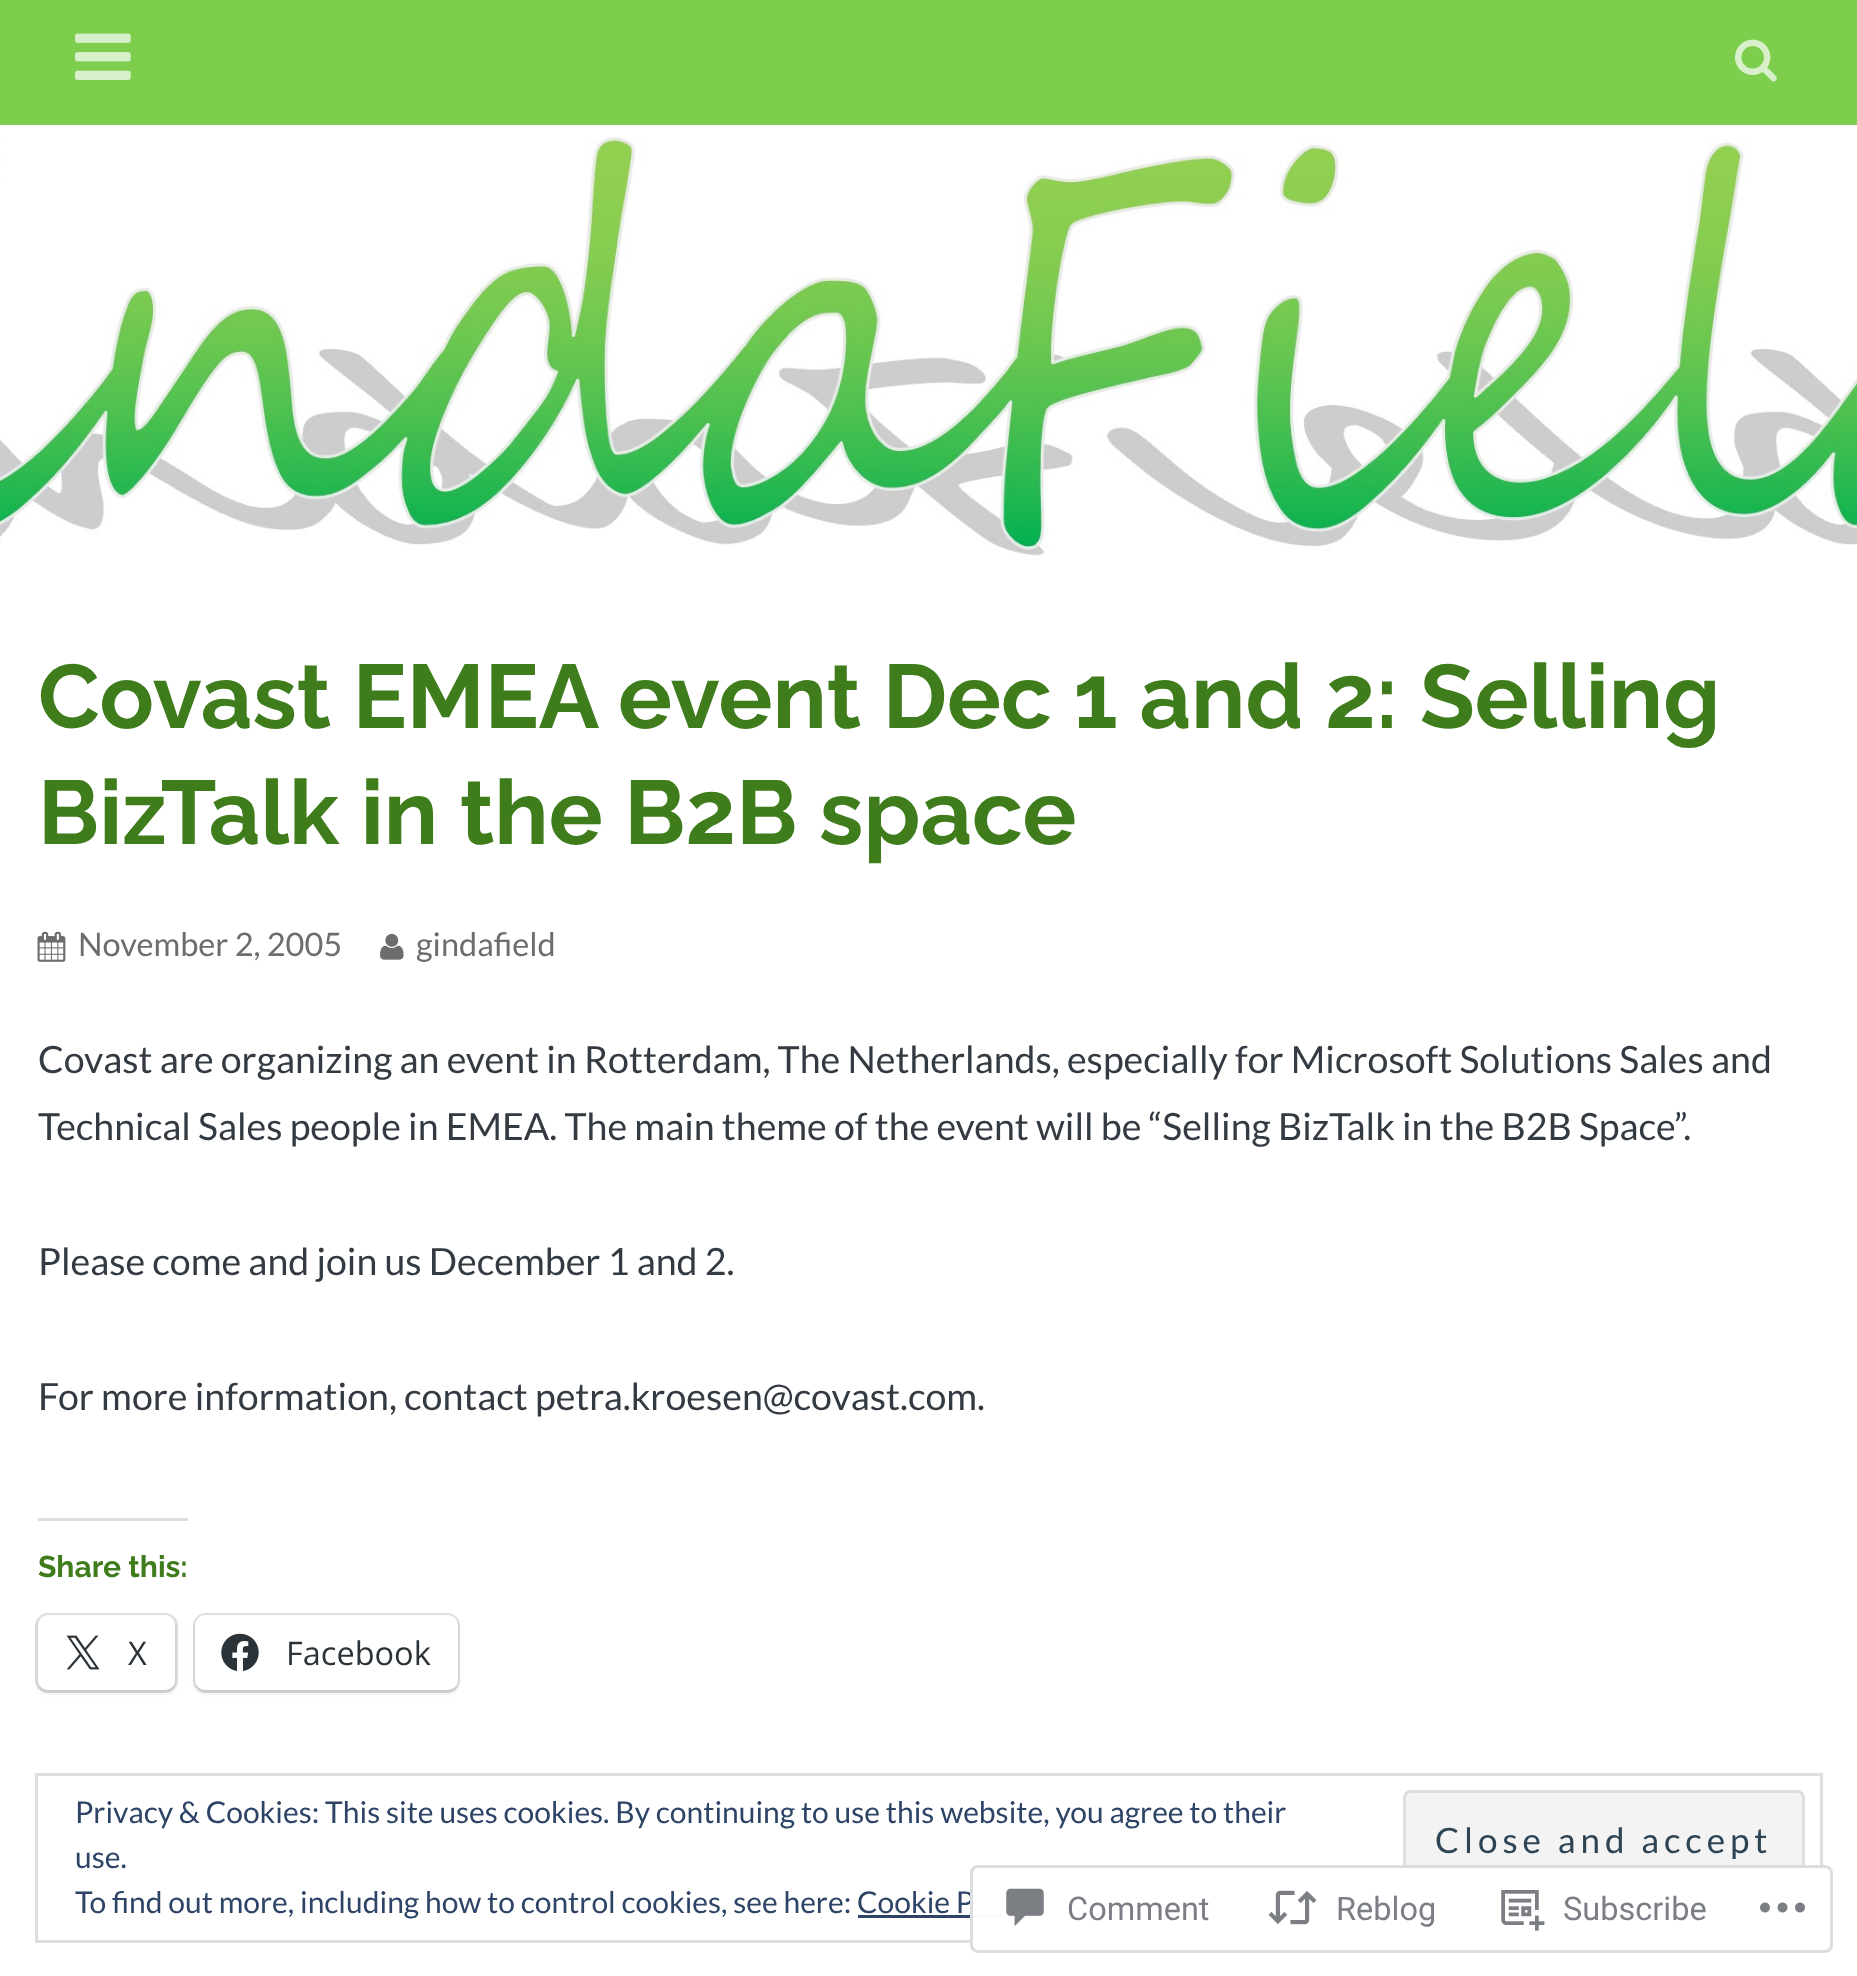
(async () => {
    const canvas = document.querySelector("canvas");
    canvas.width = 1857;
    canvas.height = 1976;
    const context = canvas.getContext("2d");
    context.miterLimit = 4;
    context.fontKerning = "normal";
    function write(s, x, y, font, color) {
        context.font = font;
        context.fillStyle = color;
        context.fillText(s, x, y);
    }
    function block(x, y, w, h, color) {
        context.fillStyle = color;
        context.fillRect(x, y, w, h);
    }
    function card(x, y, w, h, r, color) {
        context.fillStyle = color;
        context.beginPath();
        context.roundRect(x, y, w, h, r);
        context.fill();
    }
    async function photo(src, x, y, w, h) {
        const img = new Image();
        img.src = src;
        await img.decode();
        context.drawImage(img, x, y, w, h);
    }

    block(0, 0, 1857, 1976, "rgb(255, 255, 255)");
    block(0, 0, 1857, 125, "rgb(125, 206, 77)");
    await photo("media/1.png", 75, 33, 56, 47);
    await photo("media/2.png", 1735, 39, 42, 43);
    await photo("media/3.png", 0, 137, 1857, 421);
    write("Covast EMEA event Dec 1 and 2: Selling", 38, 728, "bold 90px Raleway", "rgb(63, 124, 28)");
    write("BizTalk in the B2B space", 38, 844, "bold 90px Raleway", "rgb(63, 124, 28)");
    await photo("media/4.png", 37, 931, 29, 31);
    write("November 2, 2005", 78, 956, "32.5px Lato", "rgb(109, 109, 109)");
    await photo("media/5.png", 380, 933, 24, 27);
    write("gindafield", 416, 956, "32.5px Lato", "rgb(109, 109, 109)");
    write("Covast are organizing an event in Rotterdam, The Netherlands, especially for Microsoft Solutions Sales and", 38, 1073, "37.5px Lato", "rgb(51, 58, 66)");
    write("Technical Sales people in EMEA. The main theme of the event will be “Selling BizTalk in the B2B Space”.", 38, 1140, "37.5px Lato", "rgb(51, 58, 66)");
    write("Please come and join us December 1 and 2.", 38, 1275, "37.5px Lato", "rgb(51, 58, 66)");
    write("For more information, contact petra.kroesen@covast.com.", 38, 1410, "37.5px Lato", "rgb(51, 58, 66)");
    block(38, 1518, 150, 3, "rgb(220, 220, 222)");
    write("Share this:", 38, 1577, "bold 30px Raleway", "rgb(63, 124, 28)");
    context.beginPath();
    context.roundRect(36.5, 1614.5, 140, 77, 11.5);
    context.strokeStyle = "rgb(224, 224, 224)";
    context.lineWidth = 3;
    context.stroke();
    context.fillStyle = "rgba(0, 0, 0, 0.12)";
    context.filter = "blur(2.5px)";
    context.beginPath();
    context.roundRect(38, 1618, 137, 75, 10);
    context.fill();
    context.filter = "none";
    card(38, 1615, 137, 75, 10, "rgb(255, 255, 255)");
    await photo("media/6.png", 66, 1635, 34, 35);
    write("X", 128, 1665, "32.5px Open Sans", "rgb(44, 51, 56)");
    context.beginPath();
    context.roundRect(194.5, 1614.5, 264, 77, 11.5);
    context.stroke();
    context.fillStyle = "rgba(0, 0, 0, 0.12)";
    context.filter = "blur(2.5px)";
    context.beginPath();
    context.roundRect(195, 1618, 263, 75, 10);
    context.fill();
    context.filter = "none";
    card(195, 1615, 263, 75, 10, "rgb(255, 255, 255)");
    await photo("media/7.png", 221, 1633, 38, 38);
    write("Facebook", 286, 1665, "32.5px Open Sans", "rgb(44, 51, 56)");
    context.strokeStyle = "rgb(222, 222, 222)";
    context.strokeRect(36.5, 1774.5, 1785, 167);
    write("Privacy & Cookies: This site uses cookies. By continuing to use this website, you agree to their", 75, 1823, "30px Lato", "rgb(46, 68, 103)");
    write("use.", 75, 1868, "30px Lato", "rgb(46, 68, 103)");
    context.fillStyle = "rgb(243, 243, 243)";
    context.beginPath();
    context.roundRect(1404.5, 1791.5, 399, 95, 6.5);
    context.fill();
    context.stroke();
    context.letterSpacing = "5px";
    write("Close and accept", 1435, 1853, "35px Lato", "rgb(46, 68, 83)");
    context.letterSpacing = "0px";
    write("To find out more, including how to control cookies, see here: Cookie P", 75, 1913, "30px Lato", "rgb(46, 68, 103)");
    block(858, 1915, 177, 3, "rgb(46, 68, 103)");
    card(970, 1865, 863, 88, 8, "rgba(255, 255, 255, 0.98)");
    context.beginPath();
    context.roundRect(971.5, 1866.5, 860, 85, 6.5);
    context.strokeStyle = "rgba(220, 220, 222, 0.98)";
    context.stroke();
    await photo("media/8.png", 1006, 1888, 38, 39);
    write("Comment", 1067, 1920, "32.5px Roboto", "rgb(123, 127, 133)");
    await photo("media/9.png", 1268, 1890, 49, 35);
    write("Reblog", 1336, 1920, "32.5px Roboto", "rgb(123, 127, 133)");
    await photo("media/10.png", 1501, 1890, 44, 41);
    write("Subscribe", 1563, 1920, "32.5px Roboto", "rgb(123, 127, 133)");
    await photo("media/11.png", 1760, 1902, 45, 11);
})();
